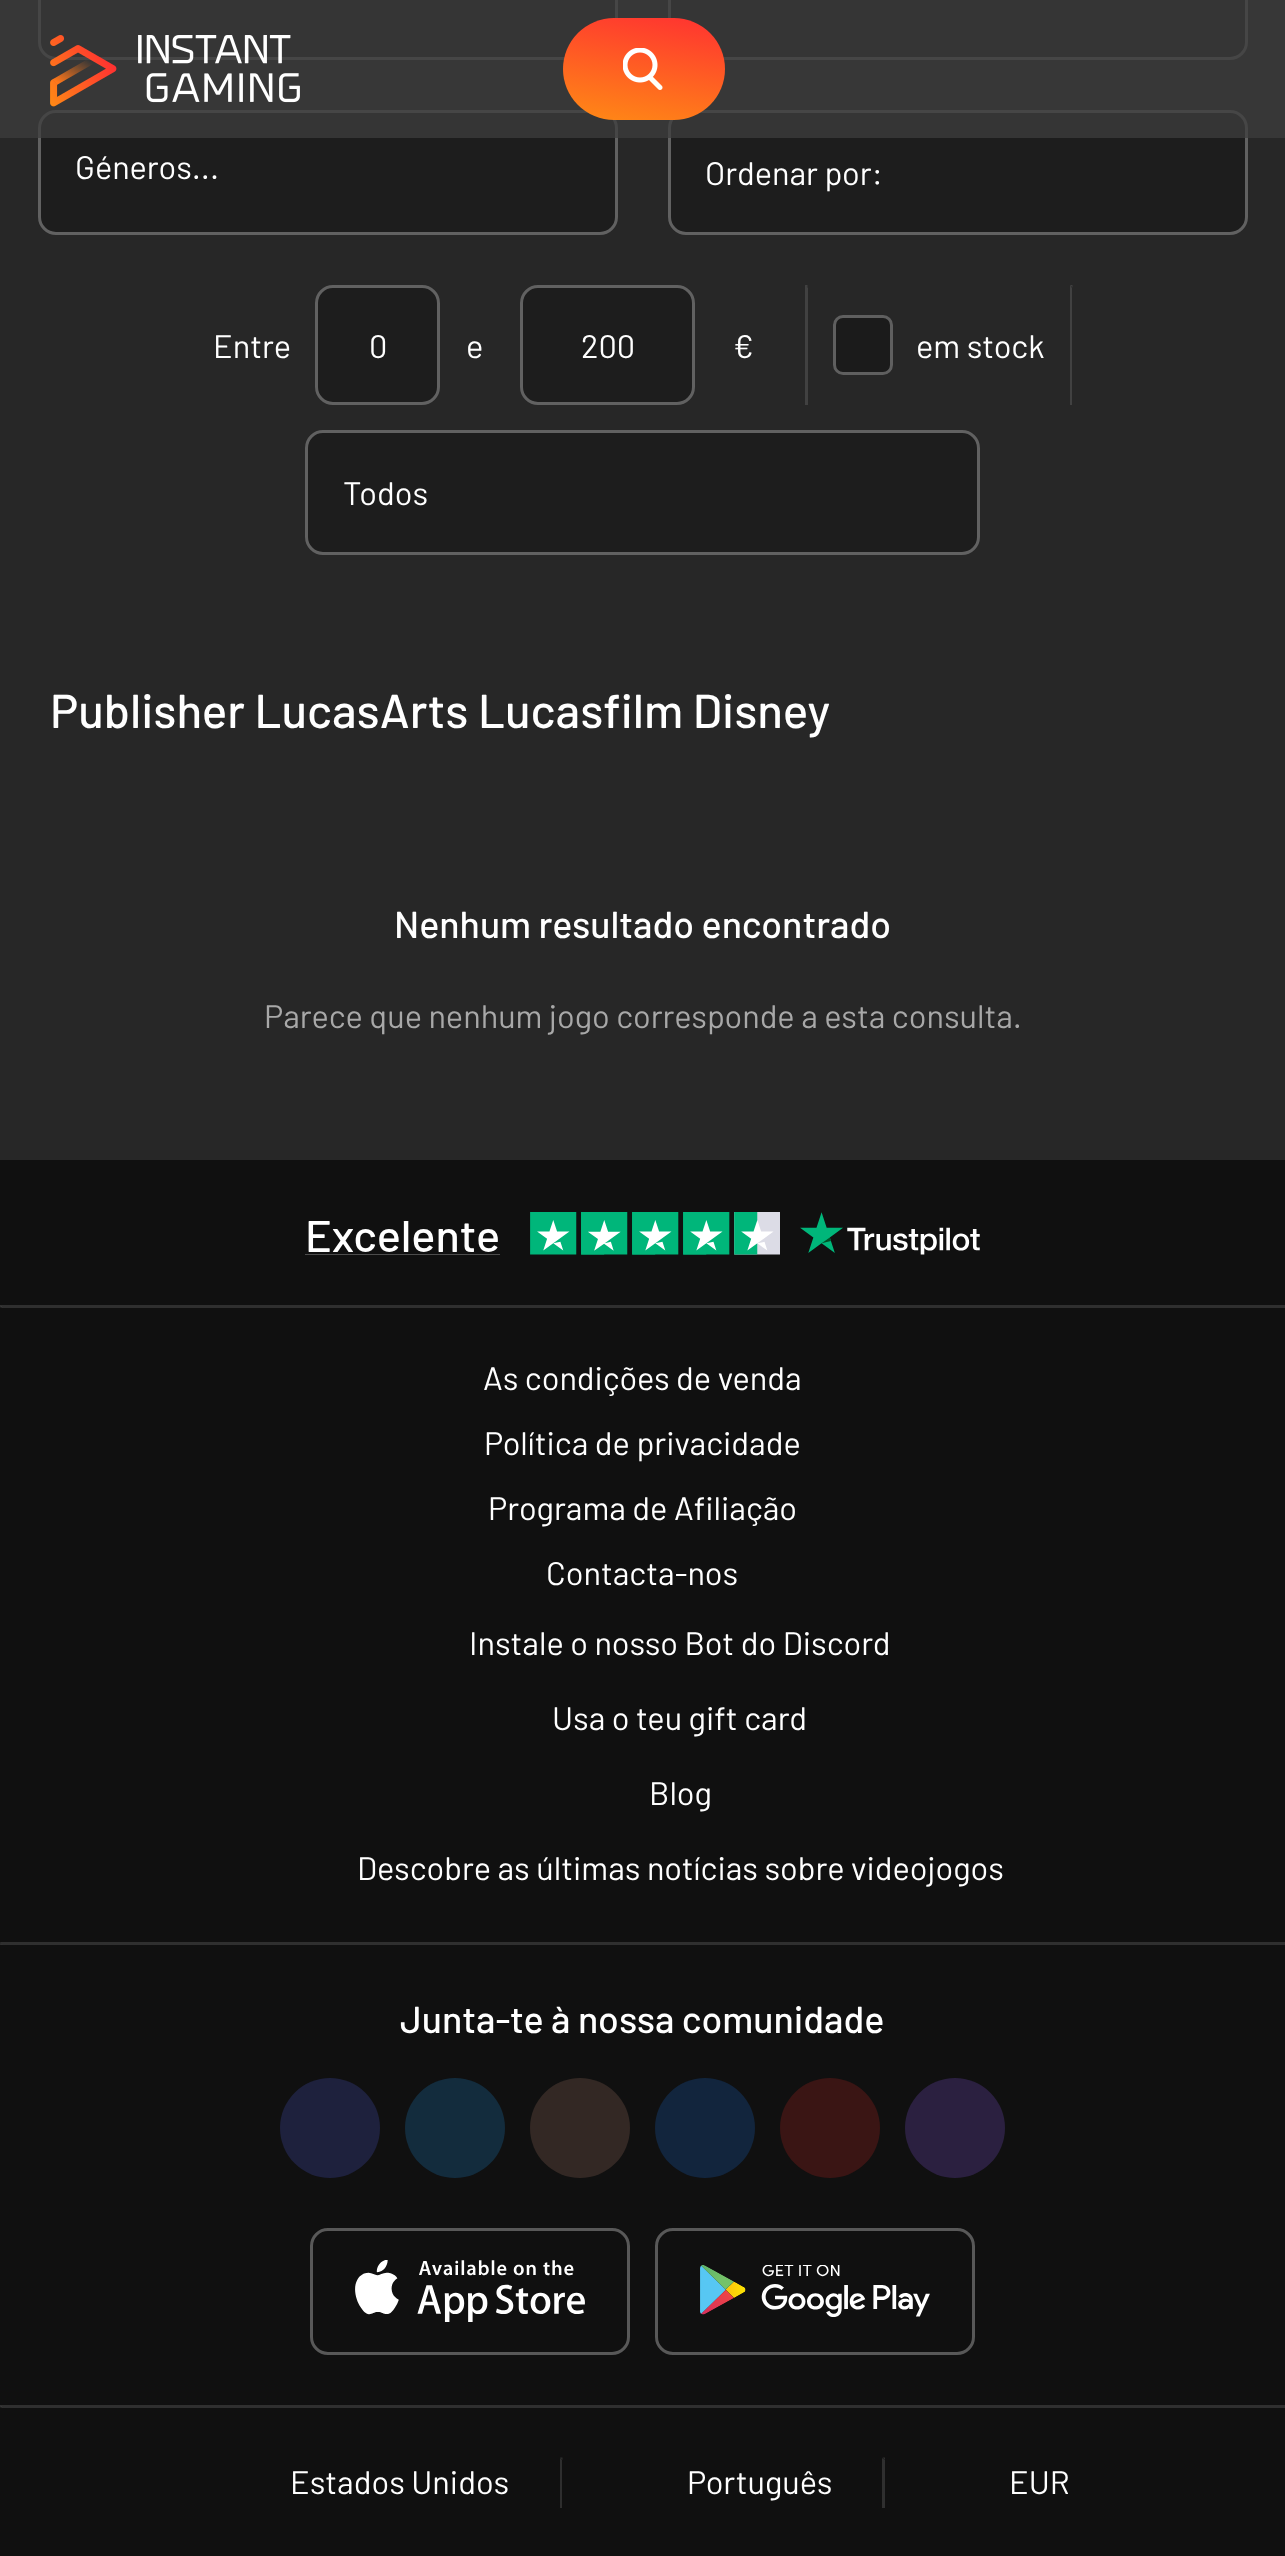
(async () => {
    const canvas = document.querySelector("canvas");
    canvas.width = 1285;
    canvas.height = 2556;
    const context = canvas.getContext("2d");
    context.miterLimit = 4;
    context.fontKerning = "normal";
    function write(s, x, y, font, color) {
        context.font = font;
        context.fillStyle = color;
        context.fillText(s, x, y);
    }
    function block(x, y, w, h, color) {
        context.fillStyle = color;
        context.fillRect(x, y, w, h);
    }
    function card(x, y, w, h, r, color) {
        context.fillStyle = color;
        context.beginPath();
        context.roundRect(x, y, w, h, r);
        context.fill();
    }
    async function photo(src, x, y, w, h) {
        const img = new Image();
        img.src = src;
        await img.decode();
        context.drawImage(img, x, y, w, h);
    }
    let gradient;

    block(0, 0, 1285, 2556, "rgb(39, 39, 39)");
    card(38, -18, 580, 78, 18, "rgb(29, 29, 29)");
    context.beginPath();
    context.roundRect(39.5, -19.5, 577, 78, 16.5);
    context.strokeStyle = "rgba(255, 255, 255, 0.3)";
    context.lineWidth = 3;
    context.stroke();
    card(668, -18, 580, 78, 18, "rgb(29, 29, 29)");
    context.beginPath();
    context.roundRect(669.5, -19.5, 577, 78, 16.5);
    context.stroke();
    card(38, 110, 580, 125, 18, "rgb(29, 29, 29)");
    context.beginPath();
    context.roundRect(39.5, 111.5, 577, 122, 16.5);
    context.stroke();
    card(668, 110, 580, 125, 18, "rgb(29, 29, 29)");
    context.beginPath();
    context.roundRect(669.5, 111.5, 577, 122, 16.5);
    context.stroke();
    block(0, 0, 1285, 138, "rgba(61, 61, 61, 0.75)");
    await photo("media/1.png", 50, 35, 250, 72);
    gradient = context.createLinearGradient(633, 132, 655, 5.2);
    gradient.addColorStop(0, "rgb(255, 138, 21)");
    gradient.addColorStop(1, "rgb(255, 49, 49)");
    context.fillStyle = gradient;
    context.beginPath();
    context.roundRect(563, 18, 162, 102, 51);
    context.fill();
    await photo("media/2.png", 623, 48, 40, 42);
    write("Géneros...", 75, 179, "32.5px Barlow", "rgb(255, 255, 255)");
    write("Ordenar por:", 705, 185, "32.5px Barlow", "rgb(255, 255, 255)");
    write("Entre", 213, 358, "32.5px Barlow", "rgb(255, 255, 255)");
    card(315, 285, 125, 120, 18, "rgb(29, 29, 29)");
    context.beginPath();
    context.roundRect(316.5, 286.5, 122, 117, 16.5);
    context.stroke();
    write("0", 369, 358, "32.5px Barlow", "rgb(255, 255, 255)");
    write("e", 466, 358, "32.5px Barlow", "rgb(255, 255, 255)");
    card(520, 285, 175, 120, 18, "rgb(29, 29, 29)");
    context.beginPath();
    context.roundRect(521.5, 286.5, 172, 117, 16.5);
    context.stroke();
    write("200", 581, 358, "32.5px Barlow", "rgb(255, 255, 255)");
    write("€", 733, 358, "32.5px Barlow", "rgb(255, 255, 255)");
    context.fillStyle = "rgb(65, 65, 65)";
    context.beginPath();
    context.moveTo(805, 285);
    context.lineTo(807.5, 285);
    context.lineTo(807.5, 287.5);
    context.closePath();
    context.fill();
    context.fillStyle = "rgba(170, 170, 170, 0.2)";
    context.beginPath();
    context.moveTo(805, 405);
    context.lineTo(805, 285);
    context.lineTo(808, 288);
    context.lineTo(808, 405);
    context.closePath();
    context.fill();
    card(833, 315, 60, 60, 10, "rgb(27, 27, 27)");
    context.beginPath();
    context.roundRect(834.5, 316.5, 57, 57, 8.5);
    context.stroke();
    write("em stock", 916, 358, "32.5px Barlow", "rgb(255, 255, 255)");
    context.fillStyle = "rgb(65, 65, 65)";
    context.beginPath();
    context.moveTo(1070, 285);
    context.lineTo(1072.5, 285);
    context.lineTo(1072.5, 287.5);
    context.closePath();
    context.fill();
    context.beginPath();
    context.moveTo(1070, 405);
    context.lineTo(1070, 285);
    context.lineTo(1072, 288);
    context.lineTo(1072, 405);
    context.closePath();
    context.fill();
    card(305, 430, 675, 125, 18, "rgb(29, 29, 29)");
    context.beginPath();
    context.roundRect(306.5, 431.5, 672, 122, 16.5);
    context.stroke();
    write("Todos", 343, 505, "32.5px Barlow", "rgb(255, 255, 255)");
    write("Publisher LucasArts Lucasfilm Disney", 50, 728, "500 47.5px Barlow", "rgb(255, 255, 255)");
    write("Nenhum resultado encontrado", 394, 938, "500 37.5px Barlow", "rgb(255, 255, 255)");
    write("Parece que nenhum jogo corresponde a esta consulta.", 264, 1028, "32.5px Barlow", "rgb(168, 168, 168)");
    block(0, 1160, 1285, 1396, "rgb(16, 16, 16)");
    await photo("media/3.png", 305, 1212, 675, 43);
    context.fillStyle = "rgb(47, 47, 47)";
    context.beginPath();
    context.moveTo(0, 1305);
    context.lineTo(1285, 1305);
    context.lineTo(1285, 1308);
    context.lineTo(2, 1308);
    context.closePath();
    context.fill();
    context.fillStyle = "rgba(170, 170, 170, 0.2)";
    context.beginPath();
    context.moveTo(0, 1307.5);
    context.lineTo(0, 1305);
    context.lineTo(2.5, 1307.5);
    context.closePath();
    context.fill();
    write("As condições de venda", 483, 1390, "32.5px Barlow", "rgb(255, 255, 255)");
    write("Política de privacidade", 484, 1455, "32.5px Barlow", "rgb(255, 255, 255)");
    write("Programa de Afiliação", 488, 1520, "32.5px Barlow", "rgb(255, 255, 255)");
    write("Contacta-nos", 546, 1585, "32.5px Barlow", "rgb(255, 255, 255)");
    write("Instale o nosso Bot do Discord", 469, 1655, "32.5px Barlow", "rgb(255, 255, 255)");
    write("Usa o teu gift card", 552, 1730, "32.5px Barlow", "rgb(255, 255, 255)");
    write("Blog", 649, 1805, "32.5px Barlow", "rgb(255, 255, 255)");
    write("Descobre as últimas notícias sobre videojogos", 357, 1880, "32.5px Barlow", "rgb(255, 255, 255)");
    context.fillStyle = "rgb(47, 47, 47)";
    context.beginPath();
    context.moveTo(0, 1942);
    context.lineTo(1285, 1942);
    context.lineTo(1285, 1945);
    context.lineTo(2, 1945);
    context.closePath();
    context.fill();
    context.fillStyle = "rgba(170, 170, 170, 0.2)";
    context.beginPath();
    context.moveTo(0, 1945);
    context.lineTo(0, 1942.5);
    context.lineTo(2.5, 1945);
    context.closePath();
    context.fill();
    write("Junta-te à nossa comunidade", 400, 2033, "500 37.5px Barlow", "rgb(255, 255, 255)");
    context.fillStyle = "rgb(30, 33, 61)";
    context.beginPath();
    context.arc(330, 2128, 50, 0, Math.PI * 2);
    context.fill();
    context.fillStyle = "rgb(19, 44, 61)";
    context.beginPath();
    context.arc(455, 2128, 50, 0, Math.PI * 2);
    context.fill();
    context.fillStyle = "rgb(51, 40, 36)";
    context.beginPath();
    context.arc(580, 2128, 50, 0, Math.PI * 2);
    context.fill();
    context.fillStyle = "rgb(18, 37, 61)";
    context.beginPath();
    context.arc(705, 2128, 50, 0, Math.PI * 2);
    context.fill();
    context.fillStyle = "rgb(58, 21, 20)";
    context.beginPath();
    context.arc(830, 2128, 50, 0, Math.PI * 2);
    context.fill();
    context.fillStyle = "rgb(43, 32, 64)";
    context.beginPath();
    context.arc(955, 2128, 50, 0, Math.PI * 2);
    context.fill();
    context.beginPath();
    context.roundRect(311.5, 2229.5, 317, 124, 16.5);
    context.strokeStyle = "rgb(88, 88, 88)";
    context.stroke();
    await photo("media/4.png", 355, 2260, 230, 62);
    context.beginPath();
    context.roundRect(656.5, 2229.5, 317, 124, 16.5);
    context.stroke();
    await photo("media/5.png", 700, 2265, 230, 52);
    context.fillStyle = "rgb(47, 47, 47)";
    context.beginPath();
    context.moveTo(0, 2405);
    context.lineTo(1285, 2405);
    context.lineTo(1285, 2408);
    context.lineTo(2, 2408);
    context.closePath();
    context.fill();
    context.fillStyle = "rgba(170, 170, 170, 0.2)";
    context.beginPath();
    context.moveTo(0, 2407.5);
    context.lineTo(0, 2405);
    context.lineTo(2.5, 2407.5);
    context.closePath();
    context.fill();
    write("Estados Unidos", 290, 2494, "32.5px Barlow", "rgb(255, 255, 255)");
    context.fillStyle = "rgb(47, 47, 47)";
    context.beginPath();
    context.moveTo(560, 2457.5);
    context.lineTo(562.5, 2457.5);
    context.lineTo(562.5, 2460);
    context.closePath();
    context.fill();
    context.fillStyle = "rgba(170, 170, 170, 0.2)";
    context.beginPath();
    context.moveTo(560, 2508);
    context.lineTo(560, 2458);
    context.lineTo(562, 2460);
    context.lineTo(562, 2508);
    context.closePath();
    context.fill();
    write("Português", 687, 2494, "32.5px Barlow", "rgb(255, 255, 255)");
    context.fillStyle = "rgb(47, 47, 47)";
    context.beginPath();
    context.moveTo(882.5, 2457.5);
    context.lineTo(885, 2457.5);
    context.lineTo(885, 2460);
    context.closePath();
    context.fill();
    context.beginPath();
    context.moveTo(882, 2508);
    context.lineTo(882, 2458);
    context.lineTo(885, 2460);
    context.lineTo(885, 2508);
    context.closePath();
    context.fill();
    write("EUR", 1009, 2494, "32.5px Barlow", "rgb(255, 255, 255)");
})();
